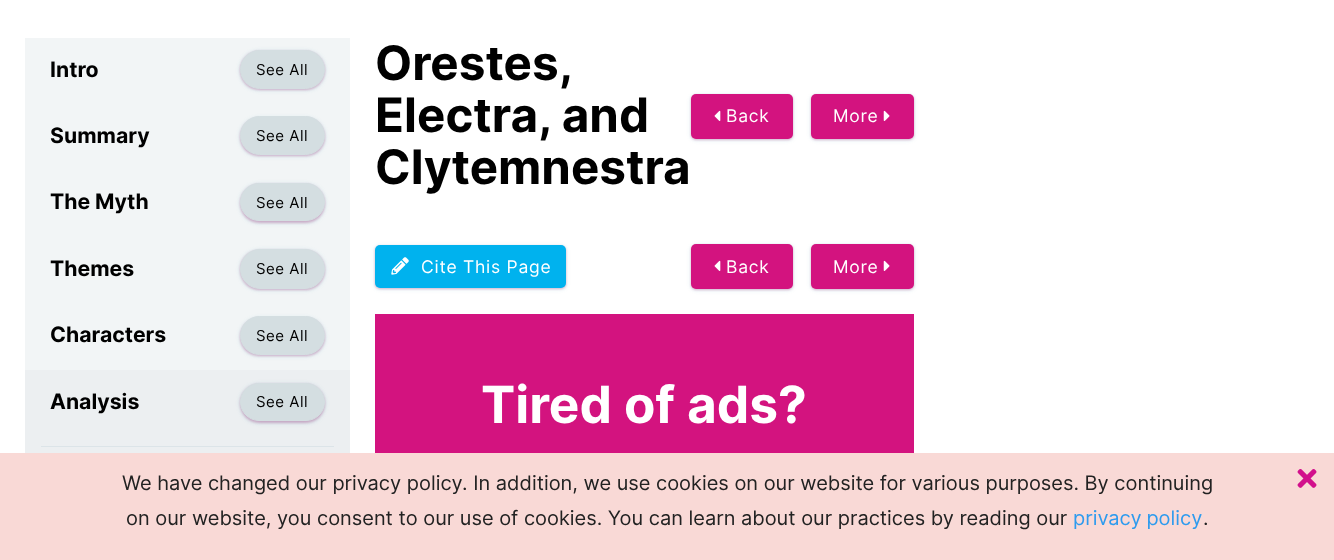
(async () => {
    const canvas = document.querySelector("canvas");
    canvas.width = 1334;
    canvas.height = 560;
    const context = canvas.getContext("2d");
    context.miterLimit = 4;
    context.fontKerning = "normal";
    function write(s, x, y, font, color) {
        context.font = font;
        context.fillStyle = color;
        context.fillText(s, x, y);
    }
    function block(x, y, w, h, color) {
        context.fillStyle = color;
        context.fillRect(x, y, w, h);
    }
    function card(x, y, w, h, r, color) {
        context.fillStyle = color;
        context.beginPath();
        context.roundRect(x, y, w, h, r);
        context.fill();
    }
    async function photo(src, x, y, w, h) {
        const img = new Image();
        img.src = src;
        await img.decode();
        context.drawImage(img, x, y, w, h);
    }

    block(0, 0, 1334, 560, "rgb(255, 255, 255)");
    block(25, 38, 325, 332, "rgb(242, 245, 246)");
    write("Intro", 50, 77, "bold 21.25px Inter", "rgb(0, 0, 0)");
    context.fillStyle = "rgba(44, 143, 175, 0.2)";
    context.filter = "blur(2px)";
    context.beginPath();
    context.roundRect(240, 51, 85, 39, 19.5);
    context.fill();
    context.filter = "none";
    context.fillStyle = "rgba(184, 46, 124, 0.3)";
    context.filter = "blur(1px)";
    context.beginPath();
    context.roundRect(240, 51, 85, 39, 19.5);
    context.fill();
    context.filter = "none";
    context.fillStyle = "rgb(212, 222, 225)";
    context.beginPath();
    context.roundRect(240.5, 50.5, 84, 38, 19);
    context.fill();
    context.strokeStyle = "rgb(212, 222, 225)";
    context.stroke();
    context.letterSpacing = "0.5px";
    write("See All", 256, 75, "15px Inter", "rgb(0, 0, 0)");
    context.letterSpacing = "0px";
    write("Summary", 50, 143, "bold 21.25px Inter", "rgb(0, 0, 0)");
    context.fillStyle = "rgba(44, 143, 175, 0.2)";
    context.filter = "blur(2px)";
    context.beginPath();
    context.roundRect(240, 118, 85, 38, 19);
    context.fill();
    context.filter = "none";
    context.fillStyle = "rgba(184, 46, 124, 0.3)";
    context.filter = "blur(1px)";
    context.beginPath();
    context.roundRect(240, 118, 85, 38, 19);
    context.fill();
    context.filter = "none";
    context.fillStyle = "rgb(212, 222, 225)";
    context.beginPath();
    context.roundRect(240.5, 116.5, 84, 38, 19);
    context.fill();
    context.stroke();
    context.letterSpacing = "0.5px";
    write("See All", 256, 141, "15px Inter", "rgb(0, 0, 0)");
    context.letterSpacing = "0px";
    write("The Myth", 50, 209, "bold 21.25px Inter", "rgb(0, 0, 0)");
    context.fillStyle = "rgba(44, 143, 175, 0.2)";
    context.filter = "blur(2px)";
    context.beginPath();
    context.roundRect(240, 184, 85, 39, 19.5);
    context.fill();
    context.filter = "none";
    context.fillStyle = "rgba(184, 46, 124, 0.3)";
    context.filter = "blur(1px)";
    context.beginPath();
    context.roundRect(240, 184, 85, 39, 19.5);
    context.fill();
    context.filter = "none";
    context.fillStyle = "rgb(212, 222, 225)";
    context.beginPath();
    context.roundRect(240.5, 183.5, 84, 37, 18.5);
    context.fill();
    context.stroke();
    context.letterSpacing = "0.5px";
    write("See All", 256, 208, "15px Inter", "rgb(0, 0, 0)");
    context.letterSpacing = "0px";
    write("Themes", 50, 276, "bold 21.25px Inter", "rgb(0, 0, 0)");
    context.fillStyle = "rgba(44, 143, 175, 0.2)";
    context.filter = "blur(2px)";
    context.beginPath();
    context.roundRect(240, 250, 85, 40, 20);
    context.fill();
    context.filter = "none";
    context.fillStyle = "rgba(184, 46, 124, 0.3)";
    context.filter = "blur(1px)";
    context.beginPath();
    context.roundRect(240, 250, 85, 40, 20);
    context.fill();
    context.filter = "none";
    context.fillStyle = "rgb(212, 222, 225)";
    context.beginPath();
    context.roundRect(240.5, 249.5, 84, 39, 19.5);
    context.fill();
    context.stroke();
    context.letterSpacing = "0.5px";
    write("See All", 256, 274, "15px Inter", "rgb(0, 0, 0)");
    context.letterSpacing = "0px";
    write("Characters", 50, 342, "bold 21.25px Inter", "rgb(0, 0, 0)");
    context.fillStyle = "rgba(44, 143, 175, 0.2)";
    context.filter = "blur(2px)";
    context.beginPath();
    context.roundRect(240, 318, 85, 38, 19);
    context.fill();
    context.filter = "none";
    context.fillStyle = "rgba(184, 46, 124, 0.3)";
    context.filter = "blur(1px)";
    context.beginPath();
    context.roundRect(240, 318, 85, 38, 19);
    context.fill();
    context.filter = "none";
    context.fillStyle = "rgb(212, 222, 225)";
    context.beginPath();
    context.roundRect(240.5, 316.5, 84, 38, 19);
    context.fill();
    context.stroke();
    context.letterSpacing = "0.5px";
    write("See All", 256, 341, "15px Inter", "rgb(0, 0, 0)");
    block(25, 370, 325, 83, "rgb(236, 239, 241)");
    context.letterSpacing = "0px";
    write("Analysis", 50, 409, "bold 21.25px Inter", "rgb(0, 0, 0)");
    context.fillStyle = "rgba(44, 143, 175, 0.2)";
    context.filter = "blur(2px)";
    context.beginPath();
    context.roundRect(240, 384, 85, 39, 19.5);
    context.fill();
    context.filter = "none";
    context.fillStyle = "rgba(184, 46, 124, 0.3)";
    context.filter = "blur(1px)";
    context.beginPath();
    context.roundRect(240, 384, 85, 39, 19.5);
    context.fill();
    context.filter = "none";
    context.fillStyle = "rgb(212, 222, 225)";
    context.beginPath();
    context.roundRect(240.5, 383.5, 84, 37, 18.5);
    context.fill();
    context.stroke();
    context.letterSpacing = "0.5px";
    write("See All", 256, 407, "15px Inter", "rgb(0, 0, 0)");
    block(41, 446, 293, 1, "rgb(220, 228, 232)");
    context.letterSpacing = "0px";
    write("Orestes,", 375, 80, "bold 47.5px Inter", "rgb(0, 0, 0)");
    write("Electra, and", 375, 132, "bold 47.5px Inter", "rgb(0, 0, 0)");
    write("Clytemnestra", 375, 184, "bold 47.5px Inter", "rgb(0, 0, 0)");
    context.fillStyle = "rgba(44, 143, 175, 0.2)";
    context.filter = "blur(2px)";
    context.beginPath();
    context.roundRect(691, 95, 102, 45, 5);
    context.fill();
    context.filter = "none";
    context.fillStyle = "rgba(184, 46, 124, 0.3)";
    context.filter = "blur(1px)";
    context.beginPath();
    context.roundRect(691, 95, 102, 45, 5);
    context.fill();
    context.filter = "none";
    card(691, 94, 102, 45, 5, "rgb(211, 19, 127)");
    await photo("media/1.png", 714, 110, 7, 11);
    context.letterSpacing = "0.75px";
    write("Back", 726, 122, "17.5px Inter", "rgb(255, 255, 255)");
    context.fillStyle = "rgba(44, 143, 175, 0.2)";
    context.filter = "blur(2px)";
    context.beginPath();
    context.roundRect(811, 95, 103, 45, 5);
    context.fill();
    context.filter = "none";
    context.fillStyle = "rgba(184, 46, 124, 0.3)";
    context.filter = "blur(1px)";
    context.beginPath();
    context.roundRect(811, 95, 103, 45, 5);
    context.fill();
    context.filter = "none";
    card(811, 94, 103, 45, 5, "rgb(211, 19, 127)");
    write("More", 833, 122, "17.5px Inter", "rgb(255, 255, 255)");
    await photo("media/2.png", 883, 110, 7, 11);
    context.fillStyle = "rgba(44, 143, 175, 0.2)";
    context.filter = "blur(2px)";
    context.beginPath();
    context.roundRect(375, 246, 191, 43, 5);
    context.fill();
    context.filter = "none";
    context.fillStyle = "rgba(184, 46, 124, 0.3)";
    context.filter = "blur(1px)";
    context.beginPath();
    context.roundRect(375, 246, 191, 43, 5);
    context.fill();
    context.filter = "none";
    card(375, 245, 191, 43, 5, "rgb(0, 178, 238)");
    await photo("media/3.png", 391, 257, 18, 18);
    write("Cite This Page", 421, 273, "17.5px Inter", "rgb(255, 255, 255)");
    context.fillStyle = "rgba(44, 143, 175, 0.2)";
    context.filter = "blur(2px)";
    context.beginPath();
    context.roundRect(691, 245, 102, 45, 5);
    context.fill();
    context.filter = "none";
    context.fillStyle = "rgba(184, 46, 124, 0.3)";
    context.filter = "blur(1px)";
    context.beginPath();
    context.roundRect(691, 245, 102, 45, 5);
    context.fill();
    context.filter = "none";
    card(691, 244, 102, 45, 5, "rgb(211, 19, 127)");
    await photo("media/1.png", 714, 260, 7, 11);
    write("Back", 726, 273, "17.5px Inter", "rgb(255, 255, 255)");
    context.fillStyle = "rgba(44, 143, 175, 0.2)";
    context.filter = "blur(2px)";
    context.beginPath();
    context.roundRect(811, 245, 103, 45, 5);
    context.fill();
    context.filter = "none";
    context.fillStyle = "rgba(184, 46, 124, 0.3)";
    context.filter = "blur(1px)";
    context.beginPath();
    context.roundRect(811, 245, 103, 45, 5);
    context.fill();
    context.filter = "none";
    card(811, 244, 103, 45, 5, "rgb(211, 19, 127)");
    write("More", 833, 273, "17.5px Inter", "rgb(255, 255, 255)");
    await photo("media/2.png", 883, 260, 7, 11);
    block(375, 314, 539, 139, "rgb(211, 19, 127)");
    context.letterSpacing = "0px";
    write("Tired of ads?", 481, 423, "bold 51.25px Inter", "rgb(255, 255, 255)");
    block(0, 453, 1334, 107, "rgb(249, 217, 214)");
    write("We have changed our privacy policy. In addition, we use cookies on our website for various purposes. By continuing", 122, 490, "20px Inter", "rgb(34, 34, 34)");
    write("on our website, you consent to our use of cookies. You can learn about our practices by reading our", 126, 525, "20px Inter", "rgb(34, 34, 34)");
    context.wordSpacing = "-1px";
    write("privacy policy", 1073, 525, "20px Inter", "rgb(46, 155, 238)");
    context.wordSpacing = "0px";
    write(".", 1203, 525, "20px Inter", "rgb(34, 34, 34)");
    await photo("media/4.png", 1297, 469, 20, 19);
})();
